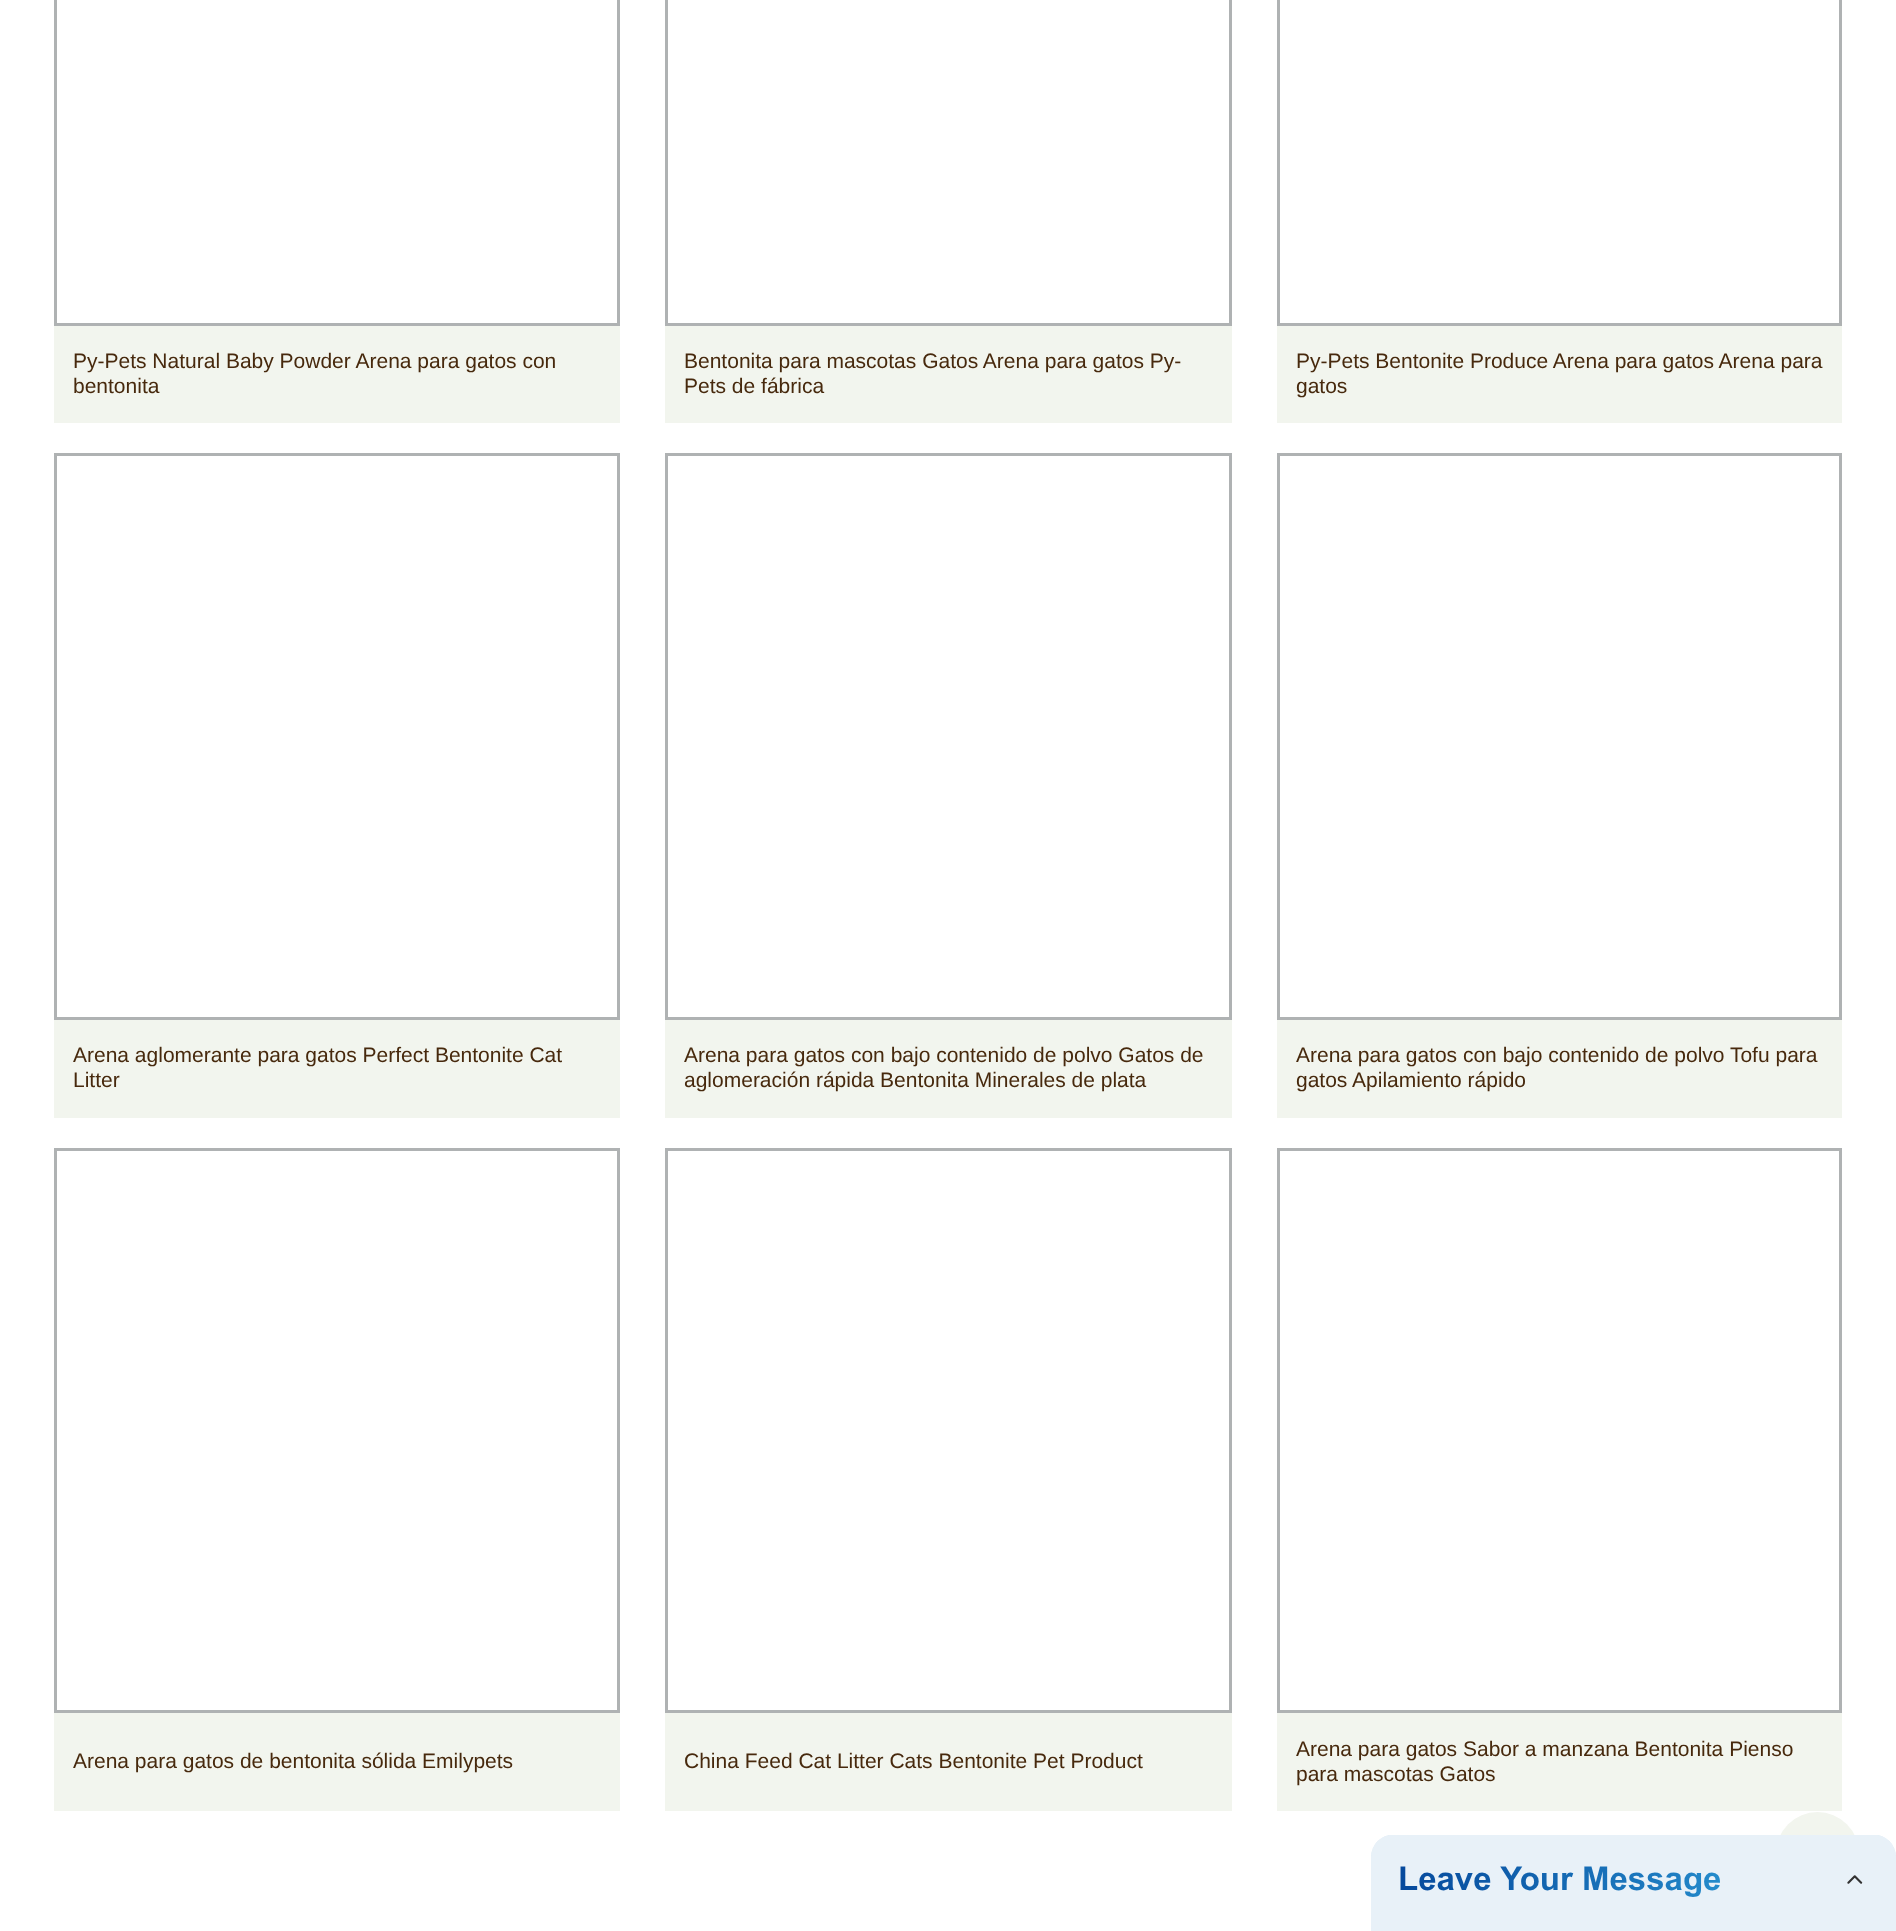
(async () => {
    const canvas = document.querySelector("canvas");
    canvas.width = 1896;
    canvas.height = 1931;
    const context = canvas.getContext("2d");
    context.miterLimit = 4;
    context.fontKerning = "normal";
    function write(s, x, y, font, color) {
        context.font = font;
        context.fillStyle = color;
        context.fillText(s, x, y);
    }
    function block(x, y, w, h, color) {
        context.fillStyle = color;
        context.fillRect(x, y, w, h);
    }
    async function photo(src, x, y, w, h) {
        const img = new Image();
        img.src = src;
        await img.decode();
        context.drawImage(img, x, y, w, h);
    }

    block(0, 0, 1896, 1931, "rgb(255, 255, 255)");
    context.strokeStyle = "rgb(175, 178, 179)";
    context.lineWidth = 3;
    context.strokeRect(55.5, -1.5, 563, 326);
    block(54, 326, 566, 97, "rgb(242, 245, 238)");
    write("Py-Pets Natural Baby Powder Arena para gatos con", 73, 368, "21px Liberation Sans", "rgb(71, 41, 13)");
    write("bentonita", 73, 393, "21px Liberation Sans", "rgb(71, 41, 13)");
    context.strokeRect(666.5, -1.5, 564, 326);
    block(665, 326, 567, 97, "rgb(242, 245, 238)");
    write("Bentonita para mascotas Gatos Arena para gatos Py-", 684, 368, "21px Liberation Sans", "rgb(71, 41, 13)");
    write("Pets de fábrica", 684, 393, "21px Liberation Sans", "rgb(71, 41, 13)");
    context.strokeRect(1278.5, -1.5, 562, 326);
    block(1277, 326, 565, 97, "rgb(242, 245, 238)");
    write("Py-Pets Bentonite Produce Arena para gatos Arena para", 1296, 368, "21px Liberation Sans", "rgb(71, 41, 13)");
    write("gatos", 1296, 393, "21px Liberation Sans", "rgb(71, 41, 13)");
    context.strokeRect(55.5, 454.5, 563, 564);
    block(54, 1020, 566, 98, "rgb(242, 245, 238)");
    write("Arena aglomerante para gatos Perfect Bentonite Cat", 73, 1062, "21px Liberation Sans", "rgb(71, 41, 13)");
    write("Litter", 73, 1087, "21px Liberation Sans", "rgb(71, 41, 13)");
    context.strokeRect(666.5, 454.5, 564, 564);
    block(665, 1020, 567, 98, "rgb(242, 245, 238)");
    write("Arena para gatos con bajo contenido de polvo Gatos de", 684, 1062, "21px Liberation Sans", "rgb(71, 41, 13)");
    write("aglomeración rápida Bentonita Minerales de plata", 684, 1087, "21px Liberation Sans", "rgb(71, 41, 13)");
    context.strokeRect(1278.5, 454.5, 562, 564);
    block(1277, 1020, 565, 98, "rgb(242, 245, 238)");
    write("Arena para gatos con bajo contenido de polvo Tofu para", 1296, 1062, "21px Liberation Sans", "rgb(71, 41, 13)");
    write("gatos Apilamiento rápido", 1296, 1087, "21px Liberation Sans", "rgb(71, 41, 13)");
    context.strokeRect(55.5, 1149.5, 563, 562);
    block(54, 1713, 566, 98, "rgb(242, 245, 238)");
    write("Arena para gatos de bentonita sólida Emilypets", 73, 1768, "21px Liberation Sans", "rgb(71, 41, 13)");
    context.strokeRect(666.5, 1149.5, 564, 562);
    block(665, 1713, 567, 98, "rgb(242, 245, 238)");
    write("China Feed Cat Litter Cats Bentonite Pet Product", 684, 1768, "21px Liberation Sans", "rgb(71, 41, 13)");
    context.strokeRect(1278.5, 1149.5, 562, 562);
    block(1277, 1713, 565, 98, "rgb(242, 245, 238)");
    write("Arena para gatos Sabor a manzana Bentonita Pienso", 1296, 1756, "21px Liberation Sans", "rgb(71, 41, 13)");
    write("para mascotas Gatos", 1296, 1781, "21px Liberation Sans", "rgb(71, 41, 13)");
    context.fillStyle = "rgb(242, 245, 238)";
    context.beginPath();
    context.arc(1817.5, 1853.5, 41.5, 0, Math.PI * 2);
    context.fill();
    await photo("media/1.png", 1371, 1835, 525, 96);
})();
